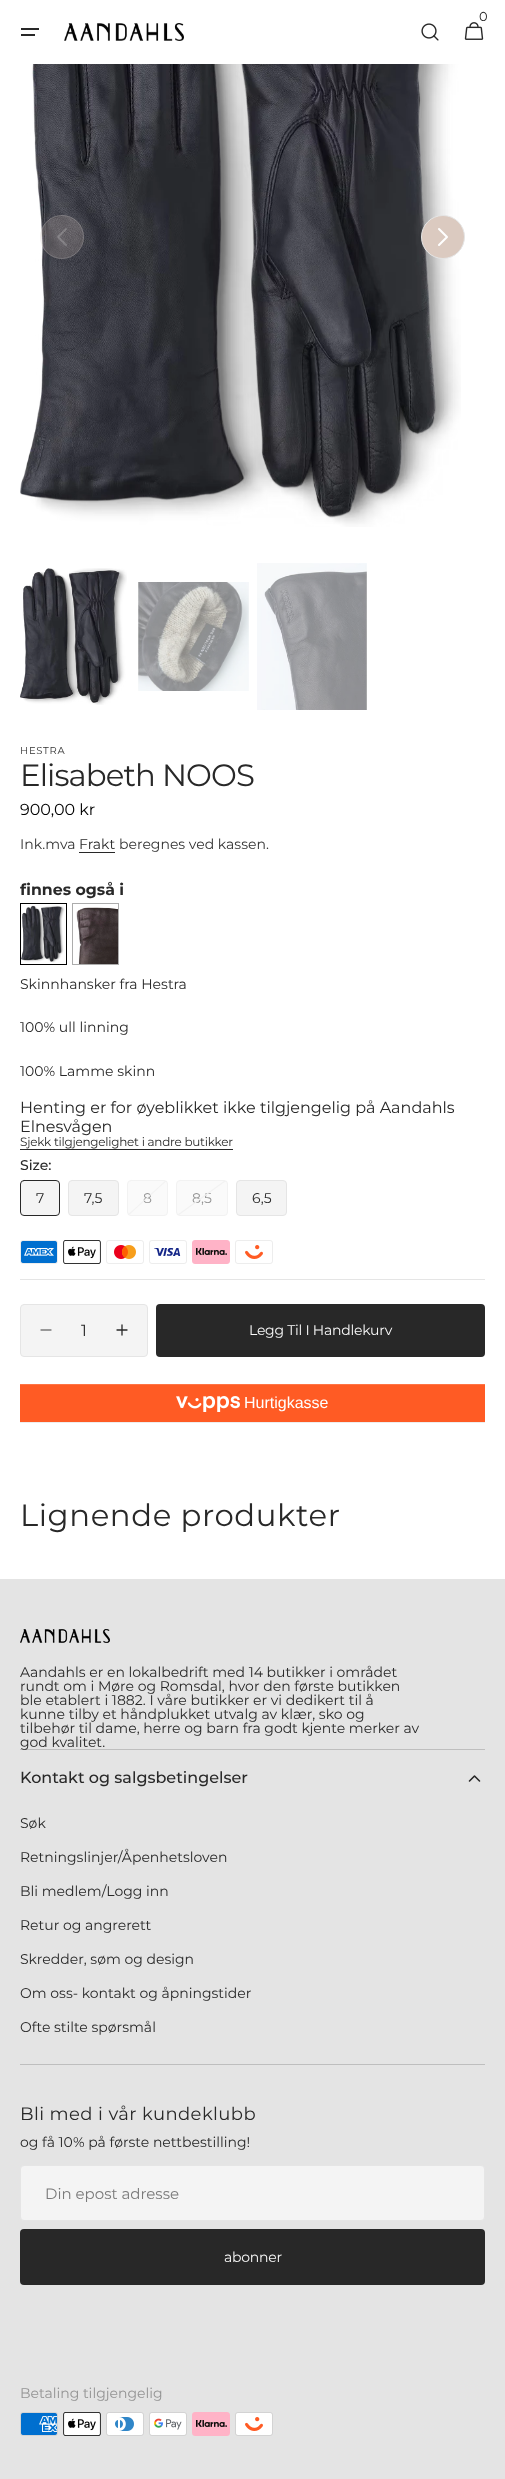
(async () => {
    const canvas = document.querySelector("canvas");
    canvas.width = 505;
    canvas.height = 2479;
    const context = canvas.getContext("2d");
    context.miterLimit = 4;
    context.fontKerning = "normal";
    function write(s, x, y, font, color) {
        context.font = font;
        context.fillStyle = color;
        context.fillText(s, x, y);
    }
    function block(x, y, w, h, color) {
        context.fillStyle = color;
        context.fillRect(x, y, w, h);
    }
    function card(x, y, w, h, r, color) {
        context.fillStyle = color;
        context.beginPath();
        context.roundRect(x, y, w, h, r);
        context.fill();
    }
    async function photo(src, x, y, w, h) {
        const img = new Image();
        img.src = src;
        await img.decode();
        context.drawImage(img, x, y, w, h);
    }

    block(0, 0, 505, 2479, "rgb(255, 255, 255)");
    write("0", 479, 21, "13px Montserrat", "rgb(40, 40, 40)");
    await photo("media/1.png", 464, 22, 20, 18);
    await photo("media/2.png", 421, 23, 18, 18);
    block(21, 28, 18, 2, "rgb(40, 40, 40)");
    block(21, 34, 14, 2, "rgb(40, 40, 40)");
    await photo("media/3.png", 64, 23, 120, 18);
    await photo("media/4.png", 20, 64, 441, 463);
    context.fillStyle = "rgba(219, 202, 192, 0.2)";
    context.beginPath();
    context.arc(62, 237, 22, 0, Math.PI * 2);
    context.fill();
    context.beginPath();
    context.arc(62, 237, 21.5, 0, Math.PI * 2);
    context.strokeStyle = "rgba(229, 229, 229, 0.2)";
    context.stroke();
    context.beginPath();
    context.moveTo(66, 245);
    context.lineTo(58, 237);
    context.lineTo(66, 229);
    context.strokeStyle = "rgba(255, 255, 255, 0.2)";
    context.lineWidth = 2;
    context.lineCap = "round";
    context.lineJoin = "round";
    context.stroke();
    context.fillStyle = "rgb(219, 202, 192)";
    context.beginPath();
    context.arc(443, 237, 21.5, 0, Math.PI * 2);
    context.fill();
    context.strokeStyle = "rgb(229, 229, 229)";
    context.lineWidth = 1;
    context.stroke();
    context.beginPath();
    context.moveTo(439, 229);
    context.lineTo(447, 237);
    context.lineTo(439, 245);
    context.strokeStyle = "rgb(255, 255, 255)";
    context.lineWidth = 2;
    context.stroke();
    await photo("media/5.png", 20, 568, 107, 137);
    await photo("media/6.png", 138, 582, 111, 109);
    await photo("media/7.png", 257, 563, 110, 147);
    context.letterSpacing = "0.75px";
    write("HESTRA", 20, 754, "10px Montserrat", "rgb(51, 51, 51)");
    context.letterSpacing = "-0.9px";
    write("Elisabeth NOOS", 20, 786, "30.75px Montserrat", "rgb(40, 40, 40)");
    context.letterSpacing = "0px";
    write("900,00 kr", 20, 815, "16px Montserrat", "rgb(0, 0, 0)");
    write("Ink.mva", 20, 849, "14px Montserrat", "rgb(51, 51, 51)");
    write("Frakt", 79, 849, "14px Montserrat", "rgb(40, 40, 40)");
    block(79, 852, 36, 1, "rgb(40, 40, 40)");
    write("beregnes ved kassen.", 119, 849, "14px Montserrat", "rgb(51, 51, 51)");
    write("finnes også i", 20, 895, "bold 15.75px Montserrat", "rgb(40, 40, 40)");
    context.strokeStyle = "rgb(0, 0, 0)";
    context.lineWidth = 1;
    context.lineJoin = "miter";
    context.strokeRect(20.5, 903.5, 46, 61);
    await photo("media/8.png", 21, 905, 44, 58);
    context.strokeStyle = "rgb(172, 172, 172)";
    context.strokeRect(72.5, 903.5, 46, 61);
    await photo("media/9.png", 76, 907, 42, 57);
    write("Skinnhansker fra Hestra", 20, 989, "14px Montserrat", "rgb(40, 40, 40)");
    write("100% ull linning", 20, 1032, "14px Montserrat", "rgb(40, 40, 40)");
    write("100% Lamme skinn", 20, 1076, "14px Montserrat", "rgb(40, 40, 40)");
    write("Henting er for øyeblikket ikke tilgjengelig på Aandahls", 20, 1113, "16px Montserrat", "rgb(40, 40, 40)");
    write("Elnesvågen", 20, 1132, "16px Montserrat", "rgb(40, 40, 40)");
    context.letterSpacing = "-0.25px";
    write("Sjekk tilgjengelighet i andre butikker", 20, 1146, "12px Montserrat", "rgb(40, 40, 40)");
    block(20, 1149, 213, 1, "rgb(40, 40, 40)");
    context.letterSpacing = "0px";
    write("Size:", 20, 1170, "500 14px Montserrat", "rgb(40, 40, 40)");
    context.fillStyle = "rgb(244, 244, 244)";
    context.beginPath();
    context.roundRect(20.5, 1180.5, 39, 35, 3.5);
    context.fill();
    context.strokeStyle = "rgb(40, 40, 40)";
    context.stroke();
    write("7", 36, 1203, "14px Montserrat", "rgb(40, 40, 40)");
    context.fillStyle = "rgb(244, 244, 244)";
    context.beginPath();
    context.roundRect(68.5, 1180.5, 50, 35, 3.5);
    context.fill();
    context.strokeStyle = "rgb(229, 229, 229)";
    context.stroke();
    write("7,5", 84, 1203, "14px Montserrat", "rgb(40, 40, 40)");
    context.fillStyle = "rgb(250, 250, 250)";
    context.beginPath();
    context.roundRect(127.5, 1180.5, 40, 35, 3.5);
    context.fill();
    context.strokeStyle = "rgb(242, 242, 242)";
    context.stroke();
    write("8", 143, 1203, "14px Montserrat", "rgb(148, 148, 148)");
    context.fillStyle = "rgb(242, 242, 242)";
    context.beginPath();
    context.moveTo(128, 1214.5);
    context.lineTo(165, 1181);
    context.lineTo(166.5, 1181);
    context.lineTo(129, 1215);
    context.lineTo(128, 1215);
    context.closePath();
    context.fill();
    context.fillStyle = "rgb(250, 250, 250)";
    context.beginPath();
    context.roundRect(176.5, 1180.5, 51, 35, 3.5);
    context.fill();
    context.stroke();
    write("8,5", 192, 1203, "14px Montserrat", "rgb(148, 148, 148)");
    context.fillStyle = "rgb(242, 242, 242)";
    context.beginPath();
    context.moveTo(177, 1215);
    context.lineTo(224, 1181);
    context.lineTo(226, 1181);
    context.lineTo(179, 1215);
    context.closePath();
    context.fill();
    context.fillStyle = "rgb(244, 244, 244)";
    context.beginPath();
    context.roundRect(236.5, 1180.5, 50, 35, 3.5);
    context.fill();
    context.strokeStyle = "rgb(229, 229, 229)";
    context.stroke();
    write("6,5", 252, 1203, "14px Montserrat", "rgb(40, 40, 40)");
    await photo("media/10.png", 20, 1240, 38, 24);
    await photo("media/11.png", 63, 1240, 38, 24);
    await photo("media/12.png", 106, 1240, 38, 24);
    await photo("media/13.png", 149, 1240, 38, 24);
    await photo("media/14.png", 192, 1240, 38, 24);
    await photo("media/15.png", 235, 1240, 38, 24);
    block(20, 1279, 465, 1, "rgb(229, 229, 229)");
    context.fillStyle = "rgb(244, 244, 244)";
    context.beginPath();
    context.roundRect(20.5, 1304.5, 127, 52, 3.5);
    context.fill();
    context.stroke();
    context.beginPath();
    context.moveTo(51, 1330);
    context.lineTo(41, 1330);
    context.strokeStyle = "rgb(122, 122, 122)";
    context.lineWidth = 1.3;
    context.stroke();
    write("1", 81, 1336, "16px Montserrat", "rgb(40, 40, 40)");
    context.beginPath();
    context.moveTo(127, 1330);
    context.lineTo(117, 1330);
    context.moveTo(122, 1335);
    context.lineTo(122, 1325);
    context.strokeStyle = "rgb(40, 40, 40)";
    context.stroke();
    card(156, 1304, 329, 53, 4, "rgb(40, 40, 40)");
    context.letterSpacing = "-0.25px";
    write("Legg Til I Handlekurv", 249, 1335, "14px Montserrat", "rgb(249, 249, 249)");
    context.fillStyle = "rgba(0, 0, 0, 0.07)";
    context.filter = "blur(0.5px)";
    context.beginPath();
    context.rect(20, 1385, 465, 38);
    context.fill();
    context.filter = "none";
    block(20, 1385, 465, 37, "rgb(255, 91, 36)");
    block(20, 1384, 465, 1, "rgb(255, 116, 69)");
    await photo("media/16.png", 176, 1396, 64, 16);
    context.letterSpacing = "0px";
    write("Hurtigkasse", 244, 1408, "16px Liberation Sans", "rgb(255, 255, 255)");
    context.letterSpacing = "0.6px";
    write("Lignende produkter", 20, 1526, "30.75px Montserrat", "rgb(40, 40, 40)");
    block(0, 1579, 505, 900, "rgb(228, 228, 228)");
    await photo("media/17.png", 20, 1629, 90, 14);
    context.letterSpacing = "0px";
    write("Aandahls er en lokalbedrift med 14 butikker i området", 20, 1677, "14px Montserrat", "rgb(40, 40, 40)");
    write("rundt om i Møre og Romsdal, hvor den første butikken", 20, 1691, "14px Montserrat", "rgb(40, 40, 40)");
    write("ble etablert i 1882. I våre butikker er vi dedikert til å", 20, 1705, "14px Montserrat", "rgb(40, 40, 40)");
    write("kunne tilby et håndplukket utvalg av klær, sko og", 20, 1719, "14px Montserrat", "rgb(40, 40, 40)");
    write("tilbehør til dame, herre og barn fra godt kjente merker av", 20, 1733, "14px Montserrat", "rgb(40, 40, 40)");
    write("god kvalitet.", 20, 1747, "14px Montserrat", "rgb(40, 40, 40)");
    block(20, 1749, 465, 1, "rgba(40, 40, 40, 0.2)");
    block(20, 2064, 465, 1, "rgb(190, 190, 190)");
    write("Kontakt og salgsbetingelser", 20, 1783, "500 16px Montserrat", "rgb(40, 40, 40)");
    context.beginPath();
    context.moveTo(469.5, 1781);
    context.lineTo(474.5, 1776);
    context.lineTo(479.5, 1781);
    context.lineWidth = 1.6;
    context.lineJoin = "round";
    context.stroke();
    write("Søk", 20, 1828, "14px Montserrat", "rgb(40, 40, 40)");
    write("Retningslinjer/Åpenhetsloven", 20, 1862, "14px Montserrat", "rgb(40, 40, 40)");
    write("Bli medlem/Logg inn", 20, 1896, "14px Montserrat", "rgb(40, 40, 40)");
    write("Retur og angrerett", 20, 1930, "14px Montserrat", "rgb(40, 40, 40)");
    write("Skredder, søm og design", 20, 1964, "14px Montserrat", "rgb(40, 40, 40)");
    write("Om oss- kontakt og åpningstider", 20, 1998, "14px Montserrat", "rgb(40, 40, 40)");
    write("Ofte stilte spørsmål", 20, 2032, "14px Montserrat", "rgb(40, 40, 40)");
    context.letterSpacing = "0.4px";
    write("Bli med i vår kundeklubb", 20, 2120, "18px Montserrat", "rgb(40, 40, 40)");
    context.letterSpacing = "0px";
    write("og få 10% på første nettbestilling!", 20, 2147, "14px Montserrat", "rgb(40, 40, 40)");
    context.fillStyle = "rgb(244, 244, 244)";
    context.beginPath();
    context.roundRect(20.5, 2165.5, 464, 55, 3.5);
    context.fill();
    context.strokeStyle = "rgb(229, 229, 229)";
    context.lineWidth = 1;
    context.lineJoin = "miter";
    context.stroke();
    write("Din epost adresse", 45, 2199, "15px Montserrat", "rgb(122, 122, 122)");
    card(20, 2229, 465, 56, 4, "rgb(40, 40, 40)");
    context.letterSpacing = "-0.25px";
    write("abonner", 224, 2262, "14px Montserrat", "rgb(249, 249, 249)");
    context.letterSpacing = "0px";
    write("Betaling tilgjengelig", 20, 2398, "14px Montserrat", "rgb(148, 148, 148)");
    await photo("media/18.png", 20, 2412, 38, 24);
    await photo("media/19.png", 63, 2412, 38, 24);
    await photo("media/20.png", 106, 2412, 38, 24);
    await photo("media/21.png", 149, 2412, 38, 24);
    await photo("media/22.png", 192, 2412, 38, 24);
    await photo("media/23.png", 235, 2412, 38, 24);
})();
